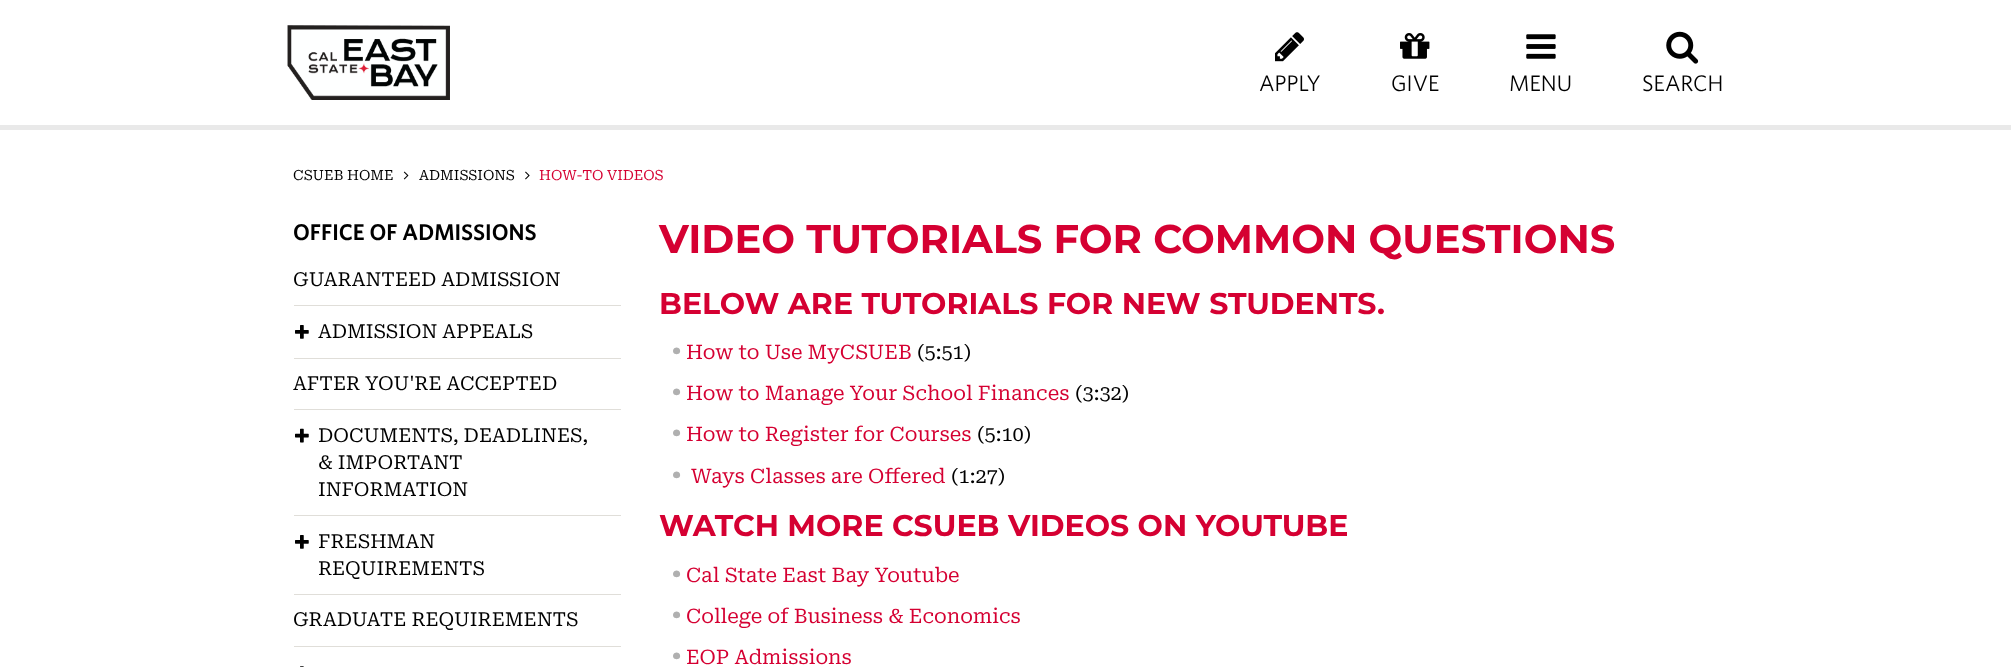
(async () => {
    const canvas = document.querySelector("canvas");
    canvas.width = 2011;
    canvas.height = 667;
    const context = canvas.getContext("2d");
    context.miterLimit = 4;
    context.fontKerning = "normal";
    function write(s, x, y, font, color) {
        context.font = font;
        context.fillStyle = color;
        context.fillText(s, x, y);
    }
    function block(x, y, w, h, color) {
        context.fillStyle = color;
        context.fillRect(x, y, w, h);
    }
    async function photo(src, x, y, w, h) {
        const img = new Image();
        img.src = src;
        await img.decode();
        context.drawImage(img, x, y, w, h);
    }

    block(0, 0, 2011, 667, "rgb(255, 255, 255)");
    block(0, 125, 2011, 5, "rgb(233, 233, 233)");
    await photo("media/1.png", 287, 25, 163, 75);
    await photo("media/2.png", 1275, 32, 29, 30);
    write("APPLY", 1259, 91, "22.5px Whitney", "rgb(0, 0, 0)");
    await photo("media/3.png", 1400, 33, 30, 26);
    write("GIVE", 1391, 91, "22.5px Whitney", "rgb(0, 0, 0)");
    await photo("media/4.png", 1526, 34, 30, 25);
    write("MENU", 1509, 91, "22.5px Whitney", "rgb(0, 0, 0)");
    await photo("media/5.png", 1666, 31, 33, 33);
    write("SEARCH", 1642, 91, "22.5px Whitney", "rgb(0, 0, 0)");
    write("CSUEB HOME", 293, 180, "14px Roboto Serif", "rgb(0, 0, 0)");
    await photo("media/6.png", 403, 171, 6, 9);
    write("ADMISSIONS", 419, 180, "14px Roboto Serif", "rgb(0, 0, 0)");
    await photo("media/7.png", 525, 171, 5, 9);
    write("HOW-TO VIDEOS", 539, 180, "14px Roboto Serif", "rgb(213, 0, 50)");
    write("OFFICE OF ADMISSIONS", 293, 240, "600 22.75px Whitney", "rgb(0, 0, 0)");
    write("GUARANTEED ADMISSION", 293, 286, "19.25px Roboto Serif", "rgb(0, 0, 0)");
    block(294, 305, 327, 1, "rgb(224, 222, 217)");
    await photo("media/8.png", 295, 325, 14, 14);
    write("ADMISSION APPEALS", 318, 338, "19.25px Roboto Serif", "rgb(0, 0, 0)");
    block(294, 358, 327, 1, "rgb(224, 222, 217)");
    write("AFTER YOU'RE ACCEPTED", 293, 390, "19.25px Roboto Serif", "rgb(0, 0, 0)");
    block(294, 409, 327, 1, "rgb(224, 222, 217)");
    await photo("media/9.png", 295, 428, 14, 15);
    write("DOCUMENTS, DEADLINES,", 318, 442, "19.25px Roboto Serif", "rgb(0, 0, 0)");
    write("& IMPORTANT", 318, 469, "19.25px Roboto Serif", "rgb(0, 0, 0)");
    write("INFORMATION", 318, 496, "19.25px Roboto Serif", "rgb(0, 0, 0)");
    block(294, 515, 327, 1, "rgb(224, 222, 217)");
    await photo("media/8.png", 295, 535, 14, 14);
    write("FRESHMAN", 318, 548, "19.25px Roboto Serif", "rgb(0, 0, 0)");
    write("REQUIREMENTS", 318, 575, "19.25px Roboto Serif", "rgb(0, 0, 0)");
    block(294, 594, 327, 1, "rgb(224, 222, 217)");
    write("GRADUATE REQUIREMENTS", 293, 626, "19.25px Roboto Serif", "rgb(0, 0, 0)");
    block(294, 646, 327, 1, "rgb(224, 222, 217)");
    await photo("media/10.png", 300, 666, 4, 1);
    write("VIDEO TUTORIALS FOR COMMON QUESTIONS", 659, 253, "bold 40px Montserrat", "rgb(213, 0, 50)");
    write("BELOW ARE TUTORIALS FOR NEW STUDENTS.", 659, 314, "bold 30px Montserrat", "rgb(213, 0, 50)");
    write("•", 671, 359, "24px Roboto Serif", "rgb(176, 176, 176)");
    write("How to Use MyCSUEB", 686, 359, "20px Roboto Serif", "rgb(213, 0, 50)");
    write("(5:51)", 917, 359, "20px Roboto Serif", "rgb(0, 0, 0)");
    write("•", 671, 400, "24px Roboto Serif", "rgb(176, 176, 176)");
    write("How to Manage Your School Finances", 686, 400, "20px Roboto Serif", "rgb(213, 0, 50)");
    write("(3:32)", 1075, 400, "20px Roboto Serif", "rgb(0, 0, 0)");
    write("•", 671, 441, "24px Roboto Serif", "rgb(176, 176, 176)");
    write("How to Register for Courses", 686, 441, "20px Roboto Serif", "rgb(213, 0, 50)");
    write("(5:10)", 977, 441, "20px Roboto Serif", "rgb(0, 0, 0)");
    write("•", 671, 483, "24px Roboto Serif", "rgb(176, 176, 176)");
    write("Ways Classes are Offered", 691, 483, "20px Roboto Serif", "rgb(213, 0, 50)");
    write("(1:27)", 951, 483, "20px Roboto Serif", "rgb(0, 0, 0)");
    write("WATCH MORE CSUEB VIDEOS ON YOUTUBE", 659, 536, "bold 30px Montserrat", "rgb(213, 0, 50)");
    write("•", 671, 582, "24px Roboto Serif", "rgb(176, 176, 176)");
    write("Cal State East Bay Youtube", 686, 582, "20px Roboto Serif", "rgb(213, 0, 50)");
    write("•", 671, 623, "24px Roboto Serif", "rgb(176, 176, 176)");
    write("College of Business & Economics", 686, 623, "20px Roboto Serif", "rgb(213, 0, 50)");
    write("•", 671, 664, "24px Roboto Serif", "rgb(176, 176, 176)");
    write("EOP Admissions", 686, 664, "20px Roboto Serif", "rgb(213, 0, 50)");
})();
